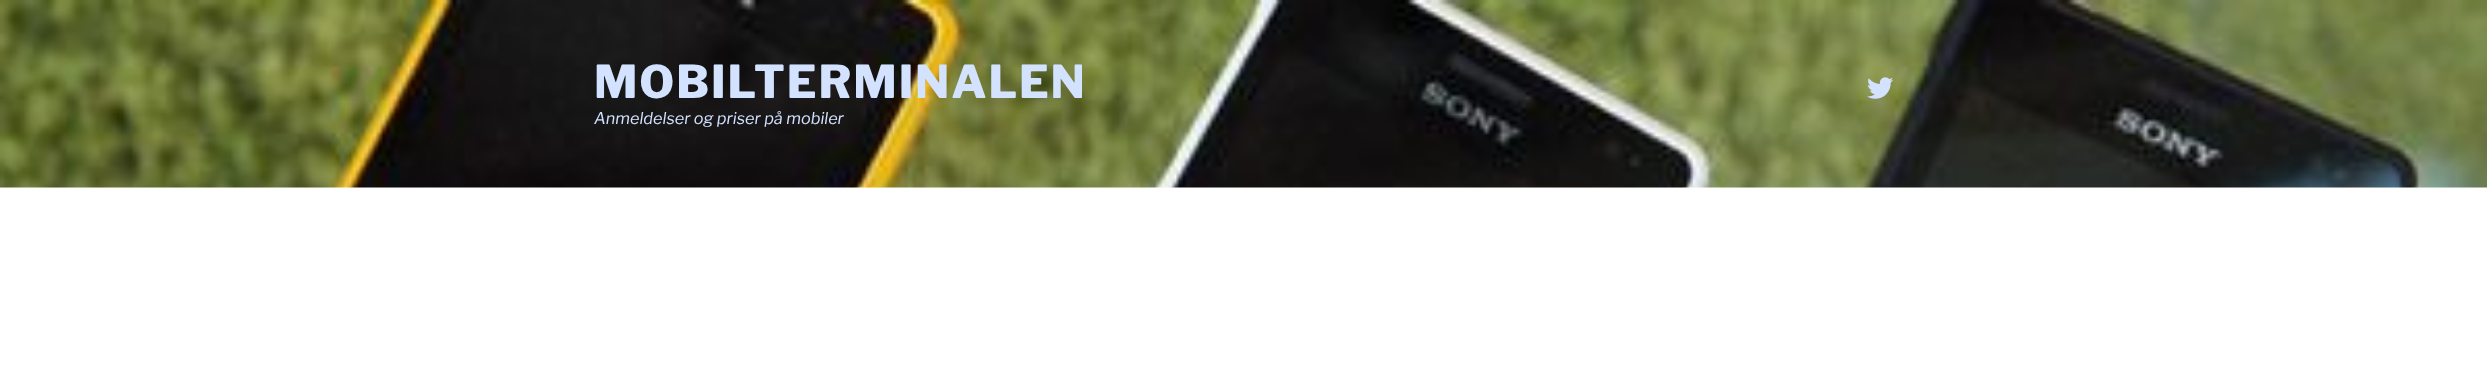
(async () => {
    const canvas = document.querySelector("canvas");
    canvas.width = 2487;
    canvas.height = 365;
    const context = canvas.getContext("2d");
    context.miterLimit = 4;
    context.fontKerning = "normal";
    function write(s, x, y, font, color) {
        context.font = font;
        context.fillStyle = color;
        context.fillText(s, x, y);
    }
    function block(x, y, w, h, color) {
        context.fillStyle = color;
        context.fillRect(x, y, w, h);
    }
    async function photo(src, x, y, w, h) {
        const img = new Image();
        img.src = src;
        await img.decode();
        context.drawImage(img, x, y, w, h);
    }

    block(0, 0, 2487, 365, "rgb(255, 255, 255)");
    await photo("media/1.png", 0, 0, 2487, 188);
    context.letterSpacing = "1.9px";
    write("MOBILTERMINALEN", 594, 98, "800 45px Libre Franklin", "rgb(211, 226, 255)");
    context.letterSpacing = "0px";
    write("Anmeldelser og priser på mobiler", 594, 124, "italic 16.25px Libre Franklin", "rgb(211, 226, 255)");
    await photo("media/2.png", 1867, 77, 27, 22);
})();
